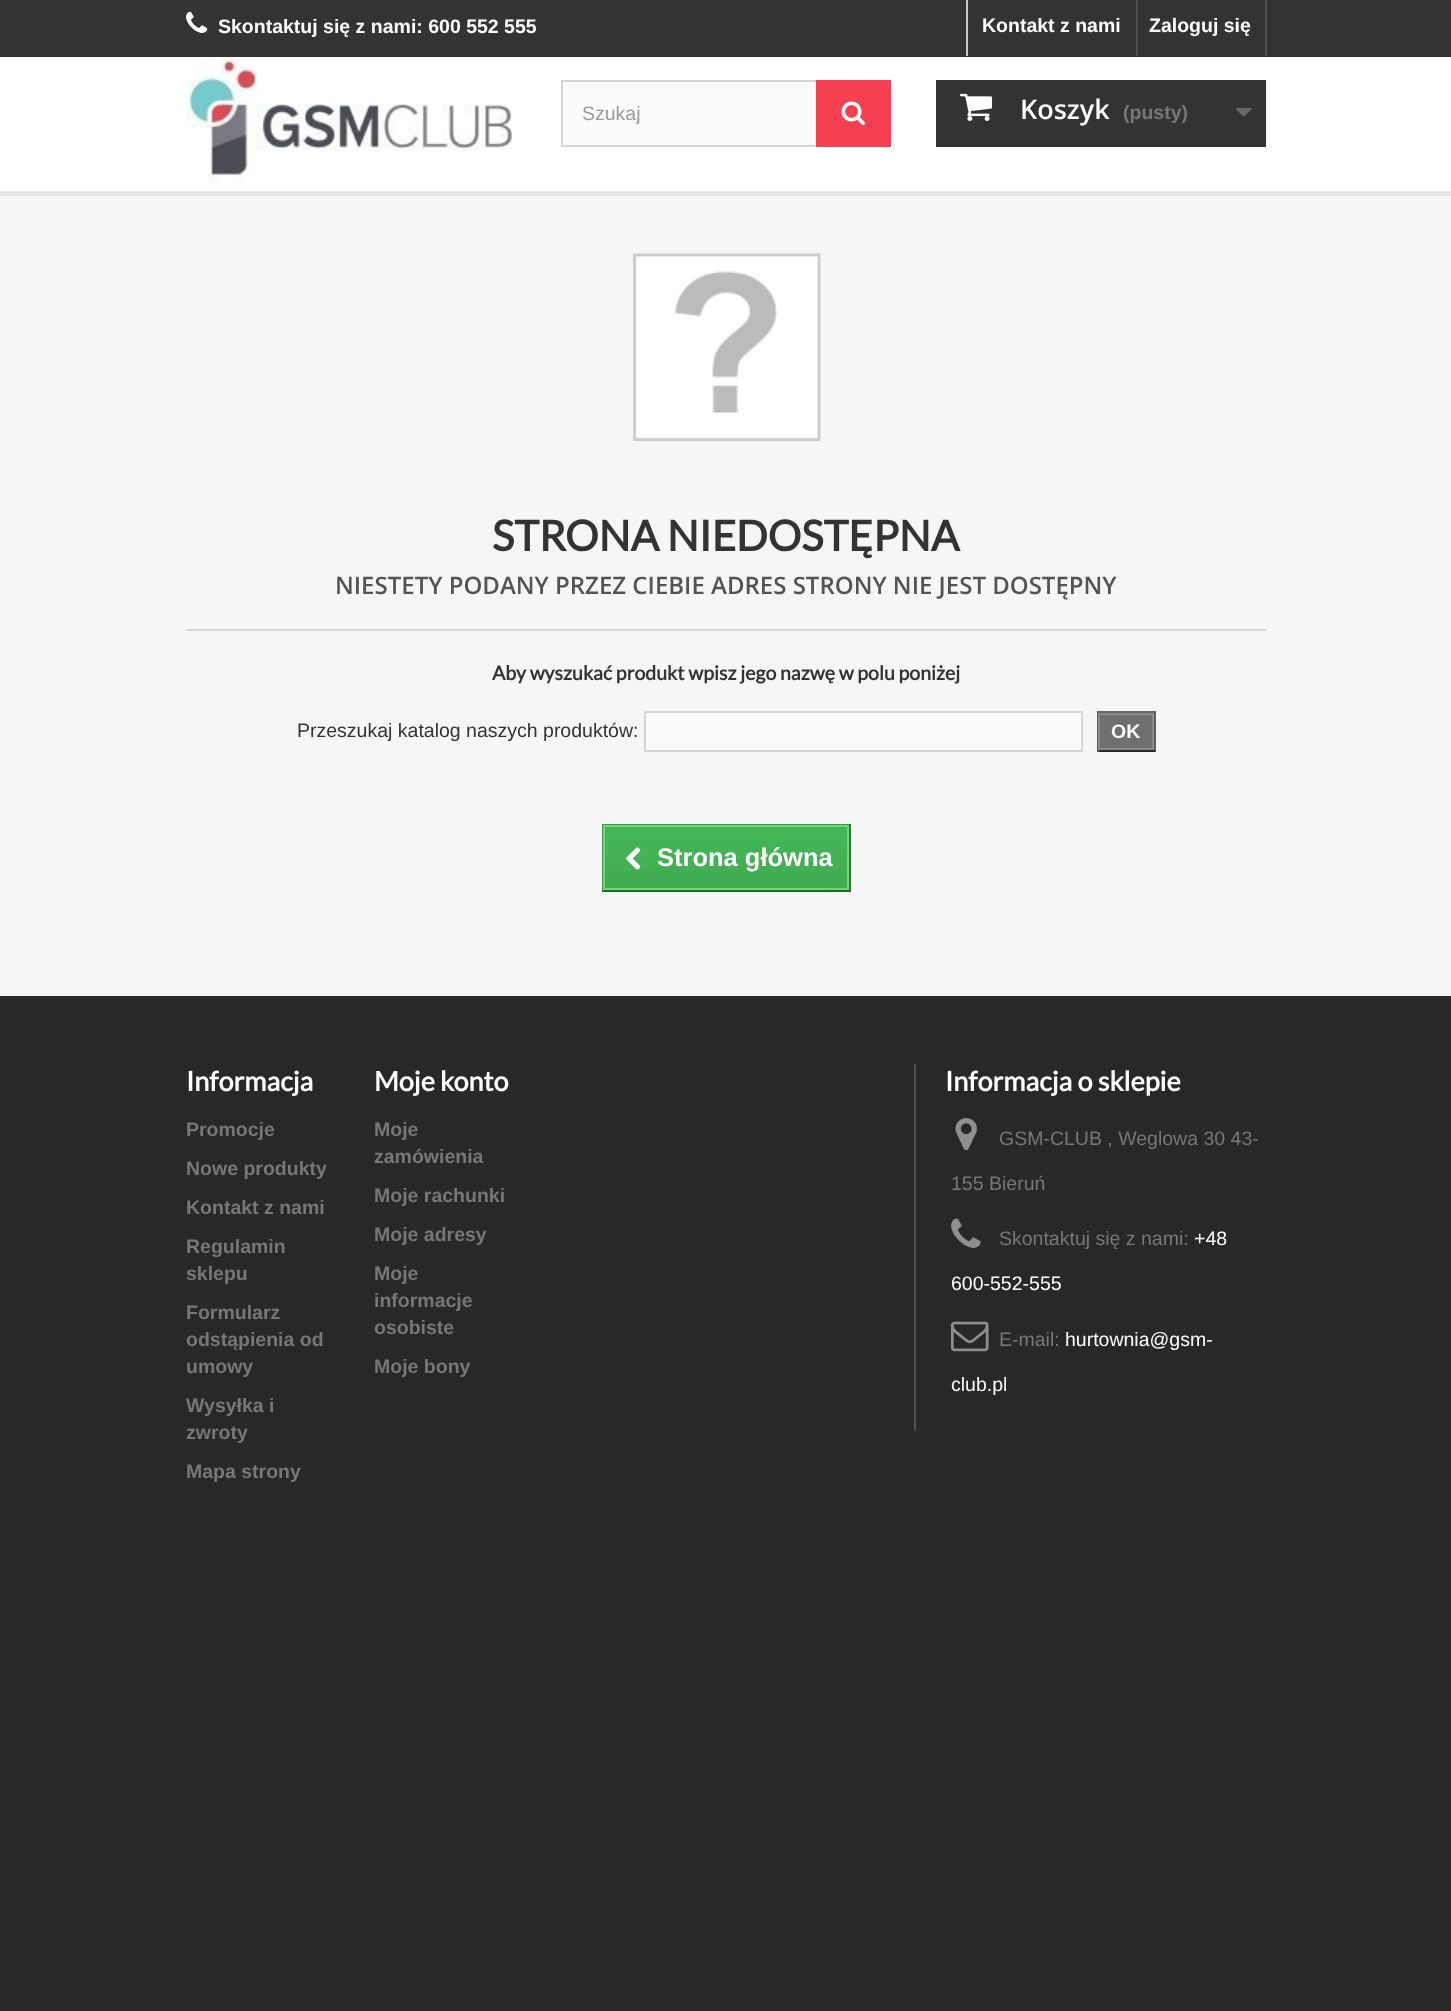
(async () => {
    const canvas = document.querySelector("canvas");
    canvas.width = 1451;
    canvas.height = 2011;
    const context = canvas.getContext("2d");
    context.miterLimit = 4;
    context.fontKerning = "normal";
    function write(s, x, y, font, color) {
        context.font = font;
        context.fillStyle = color;
        context.fillText(s, x, y);
    }
    function block(x, y, w, h, color) {
        context.fillStyle = color;
        context.fillRect(x, y, w, h);
    }
    async function photo(src, x, y, w, h) {
        const img = new Image();
        img.src = src;
        await img.decode();
        context.drawImage(img, x, y, w, h);
    }
    let gradient;

    block(0, 0, 1451, 2011, "rgb(40, 40, 40)");
    block(0, 196, 1451, 800, "rgb(246, 246, 246)");
    block(0, 0, 1451, 57, "rgb(51, 51, 51)");
    await photo("media/1.png", 186, 11, 22, 22);
    write("Skontaktuj się z nami: 600 552 555", 218, 33, "bold 19.5px Liberation Sans", "rgb(255, 255, 255)");
    block(966, 0, 2, 56, "rgb(198, 198, 198)");
    write("Kontakt z nami", 982, 32, "bold 19.5px Liberation Sans", "rgb(255, 255, 255)");
    block(1265, 0, 2, 56, "rgb(81, 81, 81)");
    block(1136, 0, 2, 56, "rgb(81, 81, 81)");
    write("Zaloguj się", 1149, 32, "bold 19.5px Liberation Sans", "rgb(255, 255, 255)");
    block(0, 57, 1451, 134, "rgb(255, 255, 255)");
    block(0, 191, 1451, 5, "rgb(229, 229, 229)");
    await photo("media/2.png", 186, 57, 326, 128);
    block(563, 82, 253, 63, "rgb(251, 251, 251)");
    context.strokeStyle = "rgb(214, 212, 212)";
    context.lineWidth = 2;
    context.strokeRect(562, 81, 328, 65);
    write("Szukaj", 582, 120, "19.5px Liberation Sans", "rgb(153, 153, 153)");
    block(816, 80, 75, 67, "rgb(244, 64, 81)");
    await photo("media/3.png", 841, 101, 25, 25);
    block(936, 80, 330, 67, "rgb(51, 51, 51)");
    await photo("media/4.png", 960, 93, 33, 28);
    write("Koszyk", 1020, 119, "600 27px Open Sans", "rgb(255, 255, 255)");
    write("(pusty)", 1123, 119, "bold 19.5px Liberation Sans", "rgb(119, 119, 119)");
    await photo("media/5.png", 1236, 108, 16, 9);
    await photo("media/6.png", 633, 253, 188, 188);
    write("STRONA NIEDOSTĘPNA", 492, 551, "bold 42px Lato", "rgb(51, 51, 51)");
    block(186, 629, 1080, 2, "rgb(214, 212, 212)");
    write("NIESTETY PODANY PRZEZ CIEBIE ADRES STRONY NIE JEST DOSTĘPNY", 335, 594, "600 24px Open Sans", "rgb(85, 84, 84)");
    write("Aby wyszukać produkt wpisz jego nazwę w polu poniżej", 492, 680, "bold 19.5px Lato", "rgb(51, 51, 51)");
    write("Przeszukaj katalog naszych produktów:", 297, 737, "19.5px Liberation Sans", "rgb(51, 51, 51)");
    context.fillStyle = "rgb(251, 251, 251)";
    context.beginPath();
    context.rect(645, 712, 437, 39);
    context.fill();
    context.stroke();
    block(1100, 715, 52, 33, "rgb(111, 111, 111)");
    block(1097, 711, 58, 2, "rgb(102, 102, 102)");
    block(1154, 711, 2, 41, "rgb(95, 95, 95)");
    block(1097, 750, 58, 2, "rgb(41, 41, 41)");
    block(1097, 711, 2, 41, "rgb(95, 95, 95)");
    context.strokeStyle = "rgb(139, 138, 138)";
    context.strokeRect(1099, 714, 54, 35);
    write("OK", 1111, 738, "bold 19.5px Liberation Sans", "rgb(255, 255, 255)");
    gradient = context.createLinearGradient(726, 825, 726, 890);
    gradient.addColorStop(0, "rgb(67, 183, 84)");
    gradient.addColorStop(0.02, "rgb(65, 183, 87)");
    gradient.addColorStop(0.04, "rgb(65, 184, 84)");
    gradient.addColorStop(0.06, "rgb(67, 183, 86)");
    gradient.addColorStop(0.38, "rgb(65, 179, 84)");
    gradient.addColorStop(0.4, "rgb(68, 179, 85)");
    gradient.addColorStop(0.66, "rgb(69, 175, 85)");
    gradient.addColorStop(0.74, "rgb(65, 174, 83)");
    gradient.addColorStop(0.91, "rgb(66, 172, 82)");
    gradient.addColorStop(0.94, "rgb(65, 174, 85)");
    gradient.addColorStop(0.96, "rgb(67, 171, 84)");
    gradient.addColorStop(1, "rgb(66, 172, 82)");
    context.fillStyle = gradient;
    context.fillRect(605, 827, 242, 61);
    block(602, 824, 249, 1, "rgb(57, 154, 73)");
    block(849, 824, 2, 67, "rgb(36, 127, 50)");
    block(602, 890, 249, 2, "rgb(26, 109, 39)");
    block(602, 824, 2, 67, "rgb(57, 154, 73)");
    context.strokeStyle = "rgb(116, 213, 120)";
    context.strokeRect(604, 826, 244, 63);
    await photo("media/7.png", 626, 847, 15, 23);
    write("Strona główna", 657, 866, "bold 25.5px Liberation Sans", "rgb(255, 255, 255)");
    write("Informacja", 186, 1091, "bold 27px Lato", "rgb(255, 255, 255)");
    write("Promocje", 186, 1136, "bold 19.5px Liberation Sans", "rgb(119, 119, 119)");
    write("Nowe produkty", 186, 1175, "bold 19.5px Liberation Sans", "rgb(119, 119, 119)");
    write("Kontakt z nami", 186, 1214, "bold 19.5px Liberation Sans", "rgb(119, 119, 119)");
    write("Regulamin", 186, 1253, "bold 19.5px Liberation Sans", "rgb(119, 119, 119)");
    write("sklepu", 186, 1280, "bold 19.5px Liberation Sans", "rgb(119, 119, 119)");
    write("Formularz", 186, 1319, "bold 19.5px Liberation Sans", "rgb(119, 119, 119)");
    write("odstąpienia od", 186, 1346, "bold 19.5px Liberation Sans", "rgb(119, 119, 119)");
    write("umowy", 186, 1373, "bold 19.5px Liberation Sans", "rgb(119, 119, 119)");
    write("Wysyłka i", 186, 1412, "bold 19.5px Liberation Sans", "rgb(119, 119, 119)");
    write("zwroty", 186, 1439, "bold 19.5px Liberation Sans", "rgb(119, 119, 119)");
    write("Mapa strony", 186, 1478, "bold 19.5px Liberation Sans", "rgb(119, 119, 119)");
    write("Moje konto", 374, 1091, "bold 27px Lato", "rgb(255, 255, 255)");
    write("Moje", 374, 1136, "bold 19.5px Liberation Sans", "rgb(119, 119, 119)");
    write("zamówienia", 374, 1163, "bold 19.5px Liberation Sans", "rgb(119, 119, 119)");
    write("Moje rachunki", 374, 1202, "bold 19.5px Liberation Sans", "rgb(119, 119, 119)");
    write("Moje adresy", 374, 1241, "bold 19.5px Liberation Sans", "rgb(119, 119, 119)");
    write("Moje", 374, 1280, "bold 19.5px Liberation Sans", "rgb(119, 119, 119)");
    write("informacje", 374, 1307, "bold 19.5px Liberation Sans", "rgb(119, 119, 119)");
    write("osobiste", 374, 1334, "bold 19.5px Liberation Sans", "rgb(119, 119, 119)");
    write("Moje bony", 374, 1373, "bold 19.5px Liberation Sans", "rgb(119, 119, 119)");
    block(914, 1064, 2, 367, "rgb(81, 81, 81)");
    write("Informacja o sklepie", 945, 1091, "bold 27px Lato", "rgb(255, 255, 255)");
    await photo("media/8.png", 955, 1118, 22, 33);
    write("GSM-CLUB , Weglowa 30 43-", 999, 1145, "19.5px Liberation Sans", "rgb(119, 119, 119)");
    write("155 Bieruń", 951, 1190, "19.5px Liberation Sans", "rgb(119, 119, 119)");
    await photo("media/9.png", 951, 1218, 30, 30);
    write("Skontaktuj się z nami:", 999, 1245, "19.5px Liberation Sans", "rgb(119, 119, 119)");
    write("+48", 1194, 1245, "19.5px Liberation Sans", "rgb(255, 255, 255)");
    write("600-552-555", 951, 1290, "19.5px Liberation Sans", "rgb(255, 255, 255)");
    await photo("media/10.png", 951, 1321, 38, 31);
    write("E-mail:", 999, 1346, "19.5px Liberation Sans", "rgb(119, 119, 119)");
    write("hurtownia@gsm-", 1065, 1346, "19.5px Liberation Sans", "rgb(255, 255, 255)");
    write("club.pl", 951, 1391, "19.5px Liberation Sans", "rgb(255, 255, 255)");
})();
